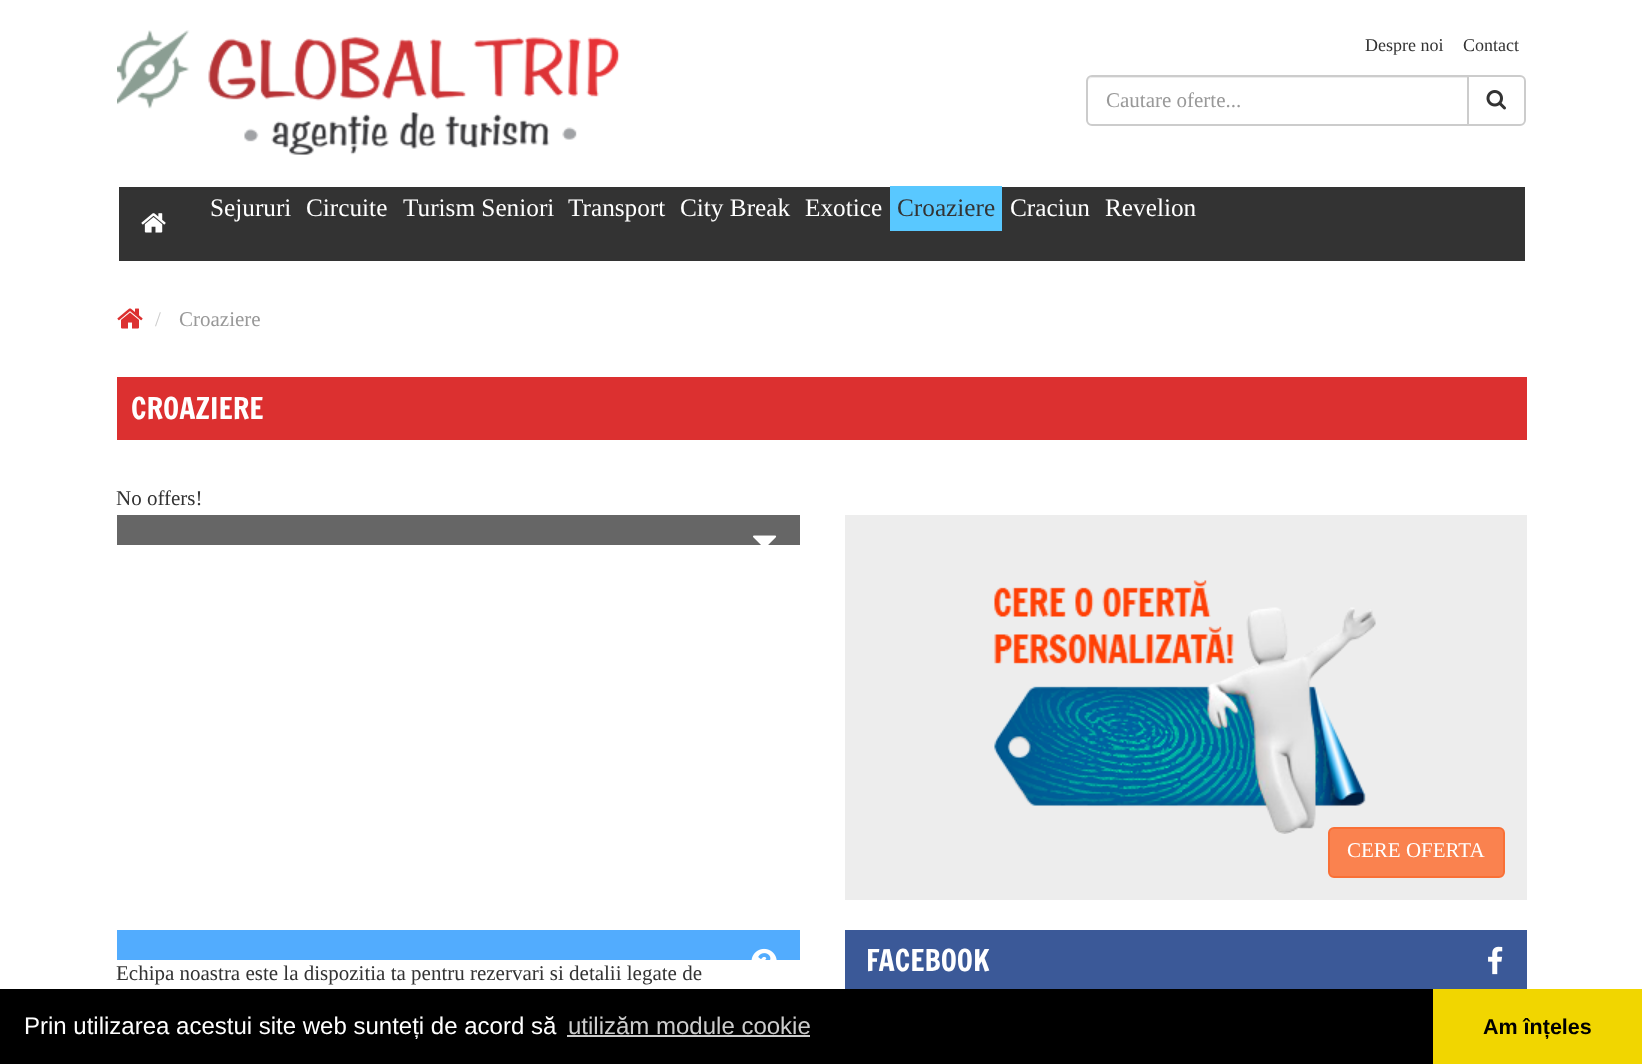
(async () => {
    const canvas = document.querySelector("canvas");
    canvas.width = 1642;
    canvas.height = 1064;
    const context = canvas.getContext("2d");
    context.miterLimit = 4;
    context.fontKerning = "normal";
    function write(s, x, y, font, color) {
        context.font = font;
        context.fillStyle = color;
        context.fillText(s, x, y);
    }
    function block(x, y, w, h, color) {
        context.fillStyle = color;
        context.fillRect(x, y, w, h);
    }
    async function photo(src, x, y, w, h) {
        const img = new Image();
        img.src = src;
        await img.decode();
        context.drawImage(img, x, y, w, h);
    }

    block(0, 0, 1642, 1064, "rgb(255, 255, 255)");
    await photo("media/1.png", 117, 30, 503, 125);
    write("Despre noi", 1365, 51, "18px Liberation Serif", "rgb(51, 51, 51)");
    write("Contact", 1463, 51, "18px Liberation Serif", "rgb(51, 51, 51)");
    context.fillStyle = "rgb(236, 236, 236)";
    context.beginPath();
    context.moveTo(1092, 78);
    context.lineTo(1467, 78);
    context.lineTo(1467, 77);
    context.lineTo(1093, 77);
    context.bezierCurveTo(1090, 77, 1088, 79, 1088, 82);
    context.bezierCurveTo(1088, 80, 1090, 78, 1092, 78);
    context.closePath();
    context.fill();
    context.beginPath();
    context.roundRect(1087, 76, 381, 49, [5, 0, 0, 5]);
    context.strokeStyle = "rgb(204, 204, 204)";
    context.lineWidth = 2;
    context.stroke();
    write("Cautare oferte...", 1106, 107, "21px Liberation Serif", "rgb(153, 153, 153)");
    context.fillStyle = "rgb(255, 255, 255)";
    context.beginPath();
    context.roundRect(1468, 76, 57, 49, [0, 5, 5, 0]);
    context.fill();
    context.stroke();
    await photo("media/2.png", 1486, 90, 20, 20);
    block(119, 187, 1406, 74, "rgb(51, 51, 51)");
    await photo("media/3.png", 141, 213, 25, 20);
    write("Sejururi", 210, 216, "25.25px Liberation Serif", "rgb(255, 255, 255)");
    write("Circuite", 306, 216, "25.25px Liberation Serif", "rgb(255, 255, 255)");
    write("Turism Seniori", 403, 216, "25.25px Liberation Serif", "rgb(255, 255, 255)");
    write("Transport", 568, 216, "25.25px Liberation Serif", "rgb(255, 255, 255)");
    write("City Break", 680, 216, "25.25px Liberation Serif", "rgb(255, 255, 255)");
    write("Exotice", 805, 216, "25.25px Liberation Serif", "rgb(255, 255, 255)");
    block(890, 186, 112, 45, "rgb(89, 200, 255)");
    write("Croaziere", 897, 216, "25.25px Liberation Serif", "rgb(51, 51, 51)");
    write("Craciun", 1010, 216, "25.25px Liberation Serif", "rgb(255, 255, 255)");
    write("Revelion", 1105, 216, "25.25px Liberation Serif", "rgb(255, 255, 255)");
    await photo("media/4.png", 117, 308, 26, 21);
    write("/", 155, 326, "21px Liberation Serif", "rgb(204, 204, 204)");
    write("Croaziere", 179, 326, "21px Liberation Serif", "rgb(153, 153, 153)");
    block(117, 377, 1410, 63, "rgb(220, 48, 48)");
    write("CROAZIERE", 131, 419, "29.5px Francois One", "rgb(255, 255, 255)");
    write("No offers!", 116, 505, "21px Liberation Serif", "rgb(51, 51, 51)");
    block(117, 515, 683, 30, "rgb(102, 102, 102)");
    await photo("media/5.png", 753, 535, 24, 10);
    block(845, 515, 682, 385, "rgb(237, 237, 237)");
    await photo("media/6.png", 994, 580, 382, 254);
    context.fillStyle = "rgb(250, 130, 79)";
    context.beginPath();
    context.roundRect(1329, 828, 175, 49, 5);
    context.fill();
    context.strokeStyle = "rgb(249, 112, 54)";
    context.stroke();
    write("CERE OFERTA", 1347, 857, "21px Liberation Serif", "rgb(255, 255, 255)");
    block(845, 930, 682, 59, "rgb(59, 89, 152)");
    write("FACEBOOK", 866, 971, "29.5px Francois One", "rgb(255, 255, 255)");
    await photo("media/7.png", 1488, 946, 15, 29);
    block(117, 930, 683, 30, "rgb(82, 172, 254)");
    await photo("media/8.png", 751, 948, 26, 12);
    write("Echipa noastra este la dispozitia ta pentru rezervari si detalii legate de", 116, 980, "21px Liberation Serif", "rgb(51, 51, 51)");
    block(0, 989, 1433, 75, "rgb(0, 0, 0)");
    write("Prin utilizarea acestui site web sunteți de acord să", 24, 1034, "24px Liberation Sans", "rgb(255, 255, 255)");
    write("utilizăm module cookie", 568, 1034, "24px Liberation Sans", "rgb(204, 204, 204)");
    block(567, 1035, 243, 2, "rgb(204, 204, 204)");
    block(1433, 989, 209, 75, "rgb(241, 214, 0)");
    write("Am înțeles", 1483, 1034, "bold 21.5px Liberation Sans", "rgb(0, 0, 0)");
})();
